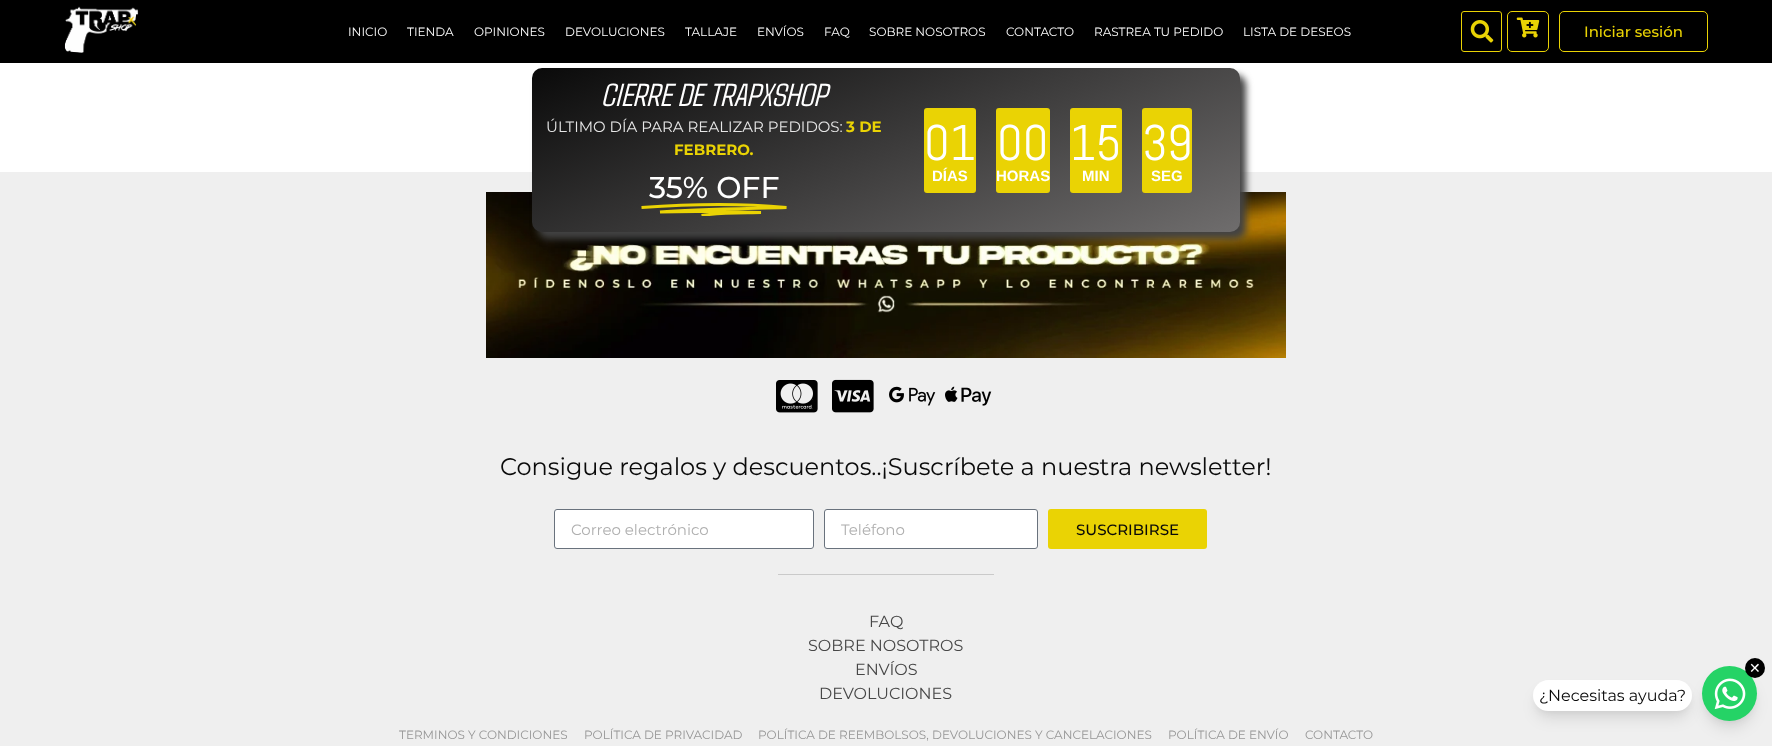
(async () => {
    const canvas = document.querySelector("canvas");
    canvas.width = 1772;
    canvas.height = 746;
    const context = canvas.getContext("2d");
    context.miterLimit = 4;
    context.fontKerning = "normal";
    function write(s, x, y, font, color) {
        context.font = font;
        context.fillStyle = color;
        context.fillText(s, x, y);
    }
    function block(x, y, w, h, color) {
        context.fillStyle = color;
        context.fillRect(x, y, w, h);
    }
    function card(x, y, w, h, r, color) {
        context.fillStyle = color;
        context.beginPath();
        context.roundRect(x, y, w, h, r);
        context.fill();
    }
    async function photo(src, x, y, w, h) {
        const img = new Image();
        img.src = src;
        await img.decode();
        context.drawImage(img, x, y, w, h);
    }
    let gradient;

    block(0, 0, 1772, 746, "rgb(255, 255, 255)");
    block(0, 0, 1772, 63, "rgb(0, 0, 0)");
    await photo("media/1.png", 64, 6, 75, 47);
    write("INICIO", 348, 36, "100 12px Montserrat", "rgb(255, 255, 255)");
    write("TIENDA", 407, 36, "100 12px Montserrat", "rgb(255, 255, 255)");
    write("OPINIONES", 474, 36, "100 12px Montserrat", "rgb(255, 255, 255)");
    write("DEVOLUCIONES", 565, 36, "100 12px Montserrat", "rgb(255, 255, 255)");
    write("TALLAJE", 685, 36, "100 12px Montserrat", "rgb(255, 255, 255)");
    write("ENVÍOS", 757, 36, "100 12px Montserrat", "rgb(255, 255, 255)");
    write("FAQ", 824, 36, "100 12px Montserrat", "rgb(255, 255, 255)");
    write("SOBRE NOSOTROS", 869, 36, "100 12px Montserrat", "rgb(255, 255, 255)");
    write("CONTACTO", 1006, 36, "100 12px Montserrat", "rgb(255, 255, 255)");
    write("RASTREA TU PEDIDO", 1094, 36, "100 12px Montserrat", "rgb(255, 255, 255)");
    write("LISTA DE DESEOS", 1243, 36, "100 12px Montserrat", "rgb(255, 255, 255)");
    context.beginPath();
    context.roundRect(1461.5, 11.5, 40, 40, 2.5);
    context.strokeStyle = "rgb(234, 211, 4)";
    context.stroke();
    await photo("media/2.png", 1470, 20, 24, 23);
    context.beginPath();
    context.roundRect(1507.5, 11.5, 41, 40, 4.5);
    context.stroke();
    await photo("media/3.png", 1516, 17, 24, 21);
    context.beginPath();
    context.roundRect(1559.5, 11.5, 148, 40, 4.5);
    context.stroke();
    write("Iniciar sesión", 1584, 37, "100 15px 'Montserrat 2'", "rgb(234, 211, 4)");
    block(0, 172, 1772, 574, "rgb(239, 239, 239)");
    await photo("media/4.png", 486, 192, 800, 166);
    context.fillStyle = "rgb(66, 66, 66)";
    context.filter = "blur(3.5px)";
    context.beginPath();
    context.roundRect(538, 75, 708, 164, 10);
    context.fill();
    context.filter = "none";
    gradient = context.createLinearGradient(808, -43, 964, 343);
    gradient.addColorStop(0, "rgb(10, 10, 10)");
    gradient.addColorStop(1, "rgb(111, 109, 109)");
    context.fillStyle = gradient;
    context.beginPath();
    context.roundRect(532, 68, 708, 164, 10);
    context.fill();
    write("CIERRE DE TRAPXSHOP", 601, 106, "italic 32px Agdasima", "rgb(255, 255, 255)");
    write("ÚLTIMO DÍA PARA REALIZAR PEDIDOS:", 546, 132, "100 15px Montserrat", "rgb(230, 230, 230)");
    write("3 DE", 846, 132, "100 15px 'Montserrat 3'", "rgb(234, 211, 4)");
    write("FEBRERO.", 674, 155, "100 15px 'Montserrat 3'", "rgb(234, 211, 4)");
    write("35% OFF", 649, 198, "100 30px 'Montserrat 2'", "rgb(255, 255, 255)");
    context.save();
    context.beginPath();
    context.rect(639, 160, 150, 56);
    context.clip();
    context.beginPath();
    context.moveTo(641.5, 207.5);
    context.bezierCurveTo(689, 204, 739, 203, 786.5, 207.5);
    context.bezierCurveTo(753, 208.5, 693.5, 209, 660, 212);
    context.bezierCurveTo(684.5, 211, 736.5, 211.5, 761, 212.5);
    context.bezierCurveTo(744, 213, 719.5, 212.5, 701.5, 215.5);
    context.lineWidth = 3;
    context.stroke();
    context.restore();
    card(924, 108, 52, 85, 3, "rgb(234, 211, 4)");
    write("01", 924, 160, "50px Abel", "rgb(255, 255, 255)");
    write("DÍAS", 932, 181, "bold 15px Liberation Sans", "rgb(255, 255, 255)");
    card(996, 108, 54, 85, 3, "rgb(234, 211, 4)");
    write("00", 997, 160, "50px Abel", "rgb(255, 255, 255)");
    write("HORAS", 996, 181, "bold 15px Liberation Sans", "rgb(255, 255, 255)");
    card(1070, 108, 52, 85, 3, "rgb(234, 211, 4)");
    write("15", 1070, 160, "50px Abel", "rgb(255, 255, 255)");
    write("MIN", 1082, 181, "bold 15px Liberation Sans", "rgb(255, 255, 255)");
    card(1142, 108, 50, 85, 3, "rgb(234, 211, 4)");
    write("39", 1142, 160, "50px Abel", "rgb(255, 255, 255)");
    write("SEG", 1151, 181, "bold 15px Liberation Sans", "rgb(255, 255, 255)");
    await photo("media/5.png", 776, 380, 42, 33);
    await photo("media/6.png", 832, 379, 42, 34);
    await photo("media/7.png", 889, 386, 47, 20);
    await photo("media/8.png", 945, 386, 47, 20);
    write("Consigue regalos y descuentos..¡Suscríbete a nuestra newsletter!", 500, 475, "100 24px Montserrat", "rgb(10, 10, 10)");
    context.fillStyle = "rgb(255, 255, 255)";
    context.beginPath();
    context.roundRect(554.5, 509.5, 259, 39, 2.5);
    context.fill();
    context.strokeStyle = "rgb(105, 114, 125)";
    context.stroke();
    write("Correo electrónico", 571, 535, "100 15px Montserrat", "rgb(175, 175, 175)");
    context.fillStyle = "rgb(255, 255, 255)";
    context.beginPath();
    context.roundRect(824.5, 509.5, 213, 39, 2.5);
    context.fill();
    context.stroke();
    write("Teléfono", 841, 535, "100 15px Montserrat", "rgb(175, 175, 175)");
    card(1048, 509, 159, 40, 3, "rgb(234, 211, 4)");
    write("SUSCRIBIRSE", 1076, 535, "100 15px 'Montserrat 2'", "rgb(10, 10, 10)");
    block(778, 574, 216, 1, "rgb(202, 202, 202)");
    write("FAQ", 869, 627, "100 16px Montserrat", "rgb(71, 71, 71)");
    write("SOBRE NOSOTROS", 808, 651, "100 16px Montserrat", "rgb(71, 71, 71)");
    write("ENVÍOS", 855, 675, "100 16px Montserrat", "rgb(71, 71, 71)");
    write("DEVOLUCIONES", 819, 699, "100 16px Montserrat", "rgb(71, 71, 71)");
    context.fillStyle = "rgba(0, 0, 0, 0.05)";
    context.filter = "blur(3px)";
    context.beginPath();
    context.roundRect(1704, 672, 51, 51, 25.5);
    context.fill();
    context.filter = "none";
    context.fillStyle = "rgba(0, 0, 0, 0.1)";
    context.filter = "blur(7.5px)";
    context.beginPath();
    context.roundRect(1705, 679, 49, 49, 24.5);
    context.fill();
    context.filter = "none";
    context.fillStyle = "rgb(37, 211, 102)";
    context.beginPath();
    context.arc(1729.5, 693.5, 27.5, 0, Math.PI * 2);
    context.fill();
    context.fillStyle = "rgb(0, 0, 0)";
    context.beginPath();
    context.arc(1755, 668, 10, 0, Math.PI * 2);
    context.fill();
    write("✕", 1749, 673, "14px DejaVu Sans", "rgb(255, 255, 255)");
    context.fillStyle = "rgba(0, 0, 0, 0.05)";
    context.filter = "blur(3px)";
    context.beginPath();
    context.roundRect(1535, 686, 155, 27, 13.5);
    context.fill();
    context.filter = "none";
    context.fillStyle = "rgba(0, 0, 0, 0.1)";
    context.filter = "blur(7.5px)";
    context.beginPath();
    context.roundRect(1536, 693, 153, 25, 12.5);
    context.fill();
    context.filter = "none";
    card(1533, 680, 159, 31, 15.5, "rgb(255, 255, 255)");
    write("¿Necesitas ayuda?", 1539, 701, "100 16px Montserrat", "rgb(10, 10, 10)");
    await photo("media/9.png", 1714, 678, 32, 32);
    write("TERMINOS Y CONDICIONES", 399, 739, "100 12px Montserrat", "rgb(150, 150, 150)");
    write("POLÍTICA DE PRIVACIDAD", 584, 739, "100 12px Montserrat", "rgb(150, 150, 150)");
    write("POLÍTICA DE REEMBOLSOS, DEVOLUCIONES Y CANCELACIONES", 758, 739, "100 12px Montserrat", "rgb(150, 150, 150)");
    write("POLÍTICA DE ENVÍO", 1168, 739, "100 12px Montserrat", "rgb(150, 150, 150)");
    write("CONTACTO", 1305, 739, "100 12px Montserrat", "rgb(150, 150, 150)");
})();
